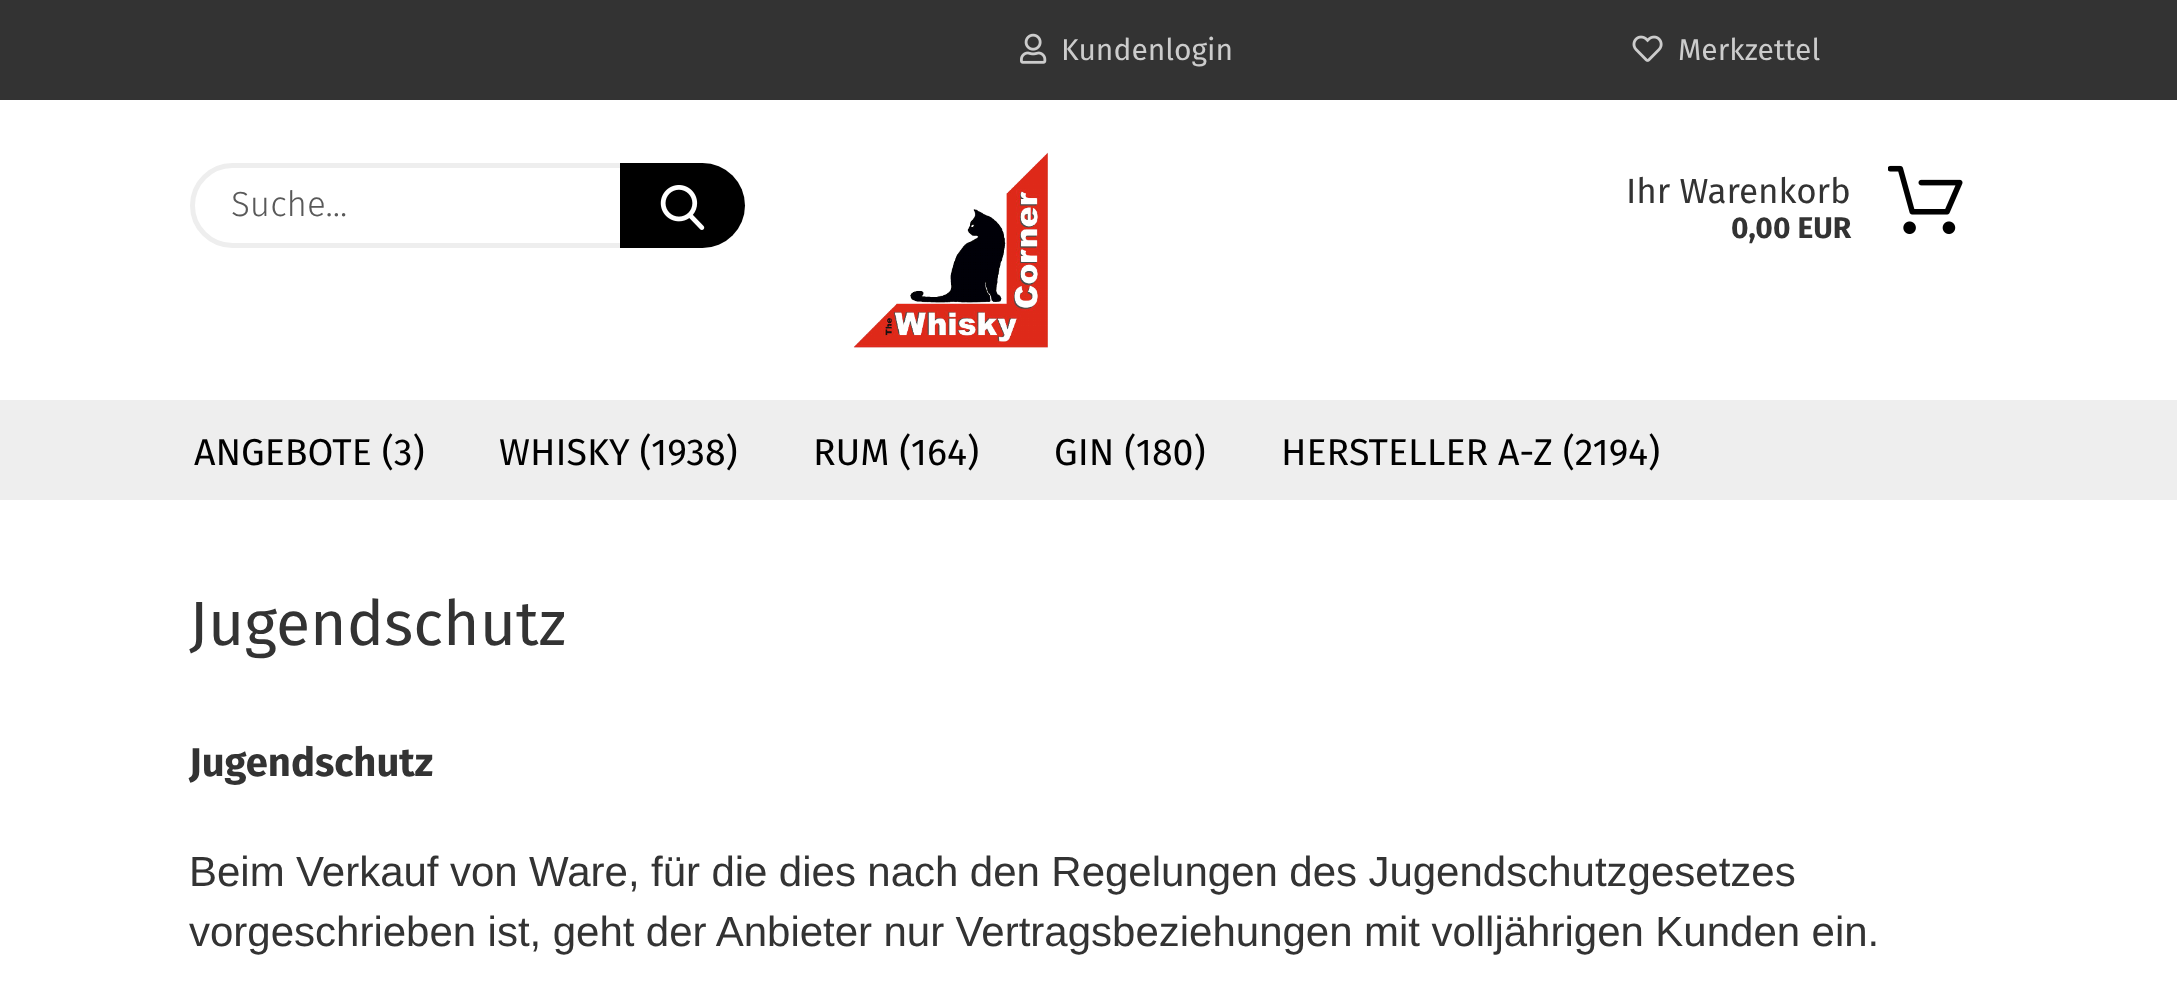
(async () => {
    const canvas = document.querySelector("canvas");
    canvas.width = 2177;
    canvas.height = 997;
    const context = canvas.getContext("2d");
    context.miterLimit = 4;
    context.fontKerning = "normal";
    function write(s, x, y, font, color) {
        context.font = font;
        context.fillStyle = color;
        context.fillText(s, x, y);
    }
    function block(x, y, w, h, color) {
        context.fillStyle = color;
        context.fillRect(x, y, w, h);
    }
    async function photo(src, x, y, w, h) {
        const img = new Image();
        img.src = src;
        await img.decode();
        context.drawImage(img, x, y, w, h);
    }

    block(0, 0, 2177, 997, "rgb(255, 255, 255)");
    block(0, 0, 2177, 100, "rgb(51, 51, 51)");
    await photo("media/1.png", 1020, 33, 27, 31);
    write("Kundenlogin", 1061, 60, "30px Fira Sans", "rgb(204, 204, 204)");
    await photo("media/2.png", 1632, 35, 31, 27);
    write("Merkzettel", 1678, 60, "30px Fira Sans", "rgb(204, 204, 204)");
    context.beginPath();
    context.roundRect(192.5, 165.5, 545, 80, 40);
    context.strokeStyle = "rgb(238, 238, 238)";
    context.lineWidth = 5;
    context.stroke();
    write("Suche...", 231, 216, "300 35px Fira Sans", "rgb(89, 89, 89)");
    context.fillStyle = "rgb(0, 0, 0)";
    context.beginPath();
    context.roundRect(620, 163, 125, 85, [0, 42.5, 42.5, 0]);
    context.fill();
    await photo("media/3.png", 660, 185, 45, 45);
    await photo("media/4.png", 853, 152, 195, 196);
    write("Ihr Warenkorb", 1626, 203, "35px Fira Sans", "rgb(51, 51, 51)");
    write("0,00 EUR", 1731, 238, "bold 30px Fira Sans", "rgb(51, 51, 51)");
    await photo("media/5.png", 1888, 165, 75, 70);
    block(0, 400, 2177, 100, "rgb(238, 238, 238)");
    write("ANGEBOTE (3)", 194, 465, "37.5px Fira Sans", "rgb(0, 0, 0)");
    write("WHISKY (1938)", 499, 465, "37.5px Fira Sans", "rgb(0, 0, 0)");
    write("RUM (164)", 813, 465, "37.5px Fira Sans", "rgb(0, 0, 0)");
    write("GIN (180)", 1054, 465, "37.5px Fira Sans", "rgb(0, 0, 0)");
    write("HERSTELLER A-Z (2194)", 1281, 465, "37.5px Fira Sans", "rgb(0, 0, 0)");
    write("Jugendschutz", 189, 645, "62.5px Fira Sans", "rgb(51, 51, 51)");
    write("Jugendschutz", 189, 776, "bold 40px Fira Sans", "rgb(51, 51, 51)");
    context.wordSpacing = "-0.25px";
    write("Beim Verkauf von Ware, für die dies nach den Regelungen des Jugendschutzgesetzes", 189, 886, "42px Liberation Sans", "rgb(51, 51, 51)");
    write("vorgeschrieben ist, geht der Anbieter nur Vertragsbeziehungen mit volljährigen Kunden ein.", 189, 946, "42px Liberation Sans", "rgb(51, 51, 51)");
})();
